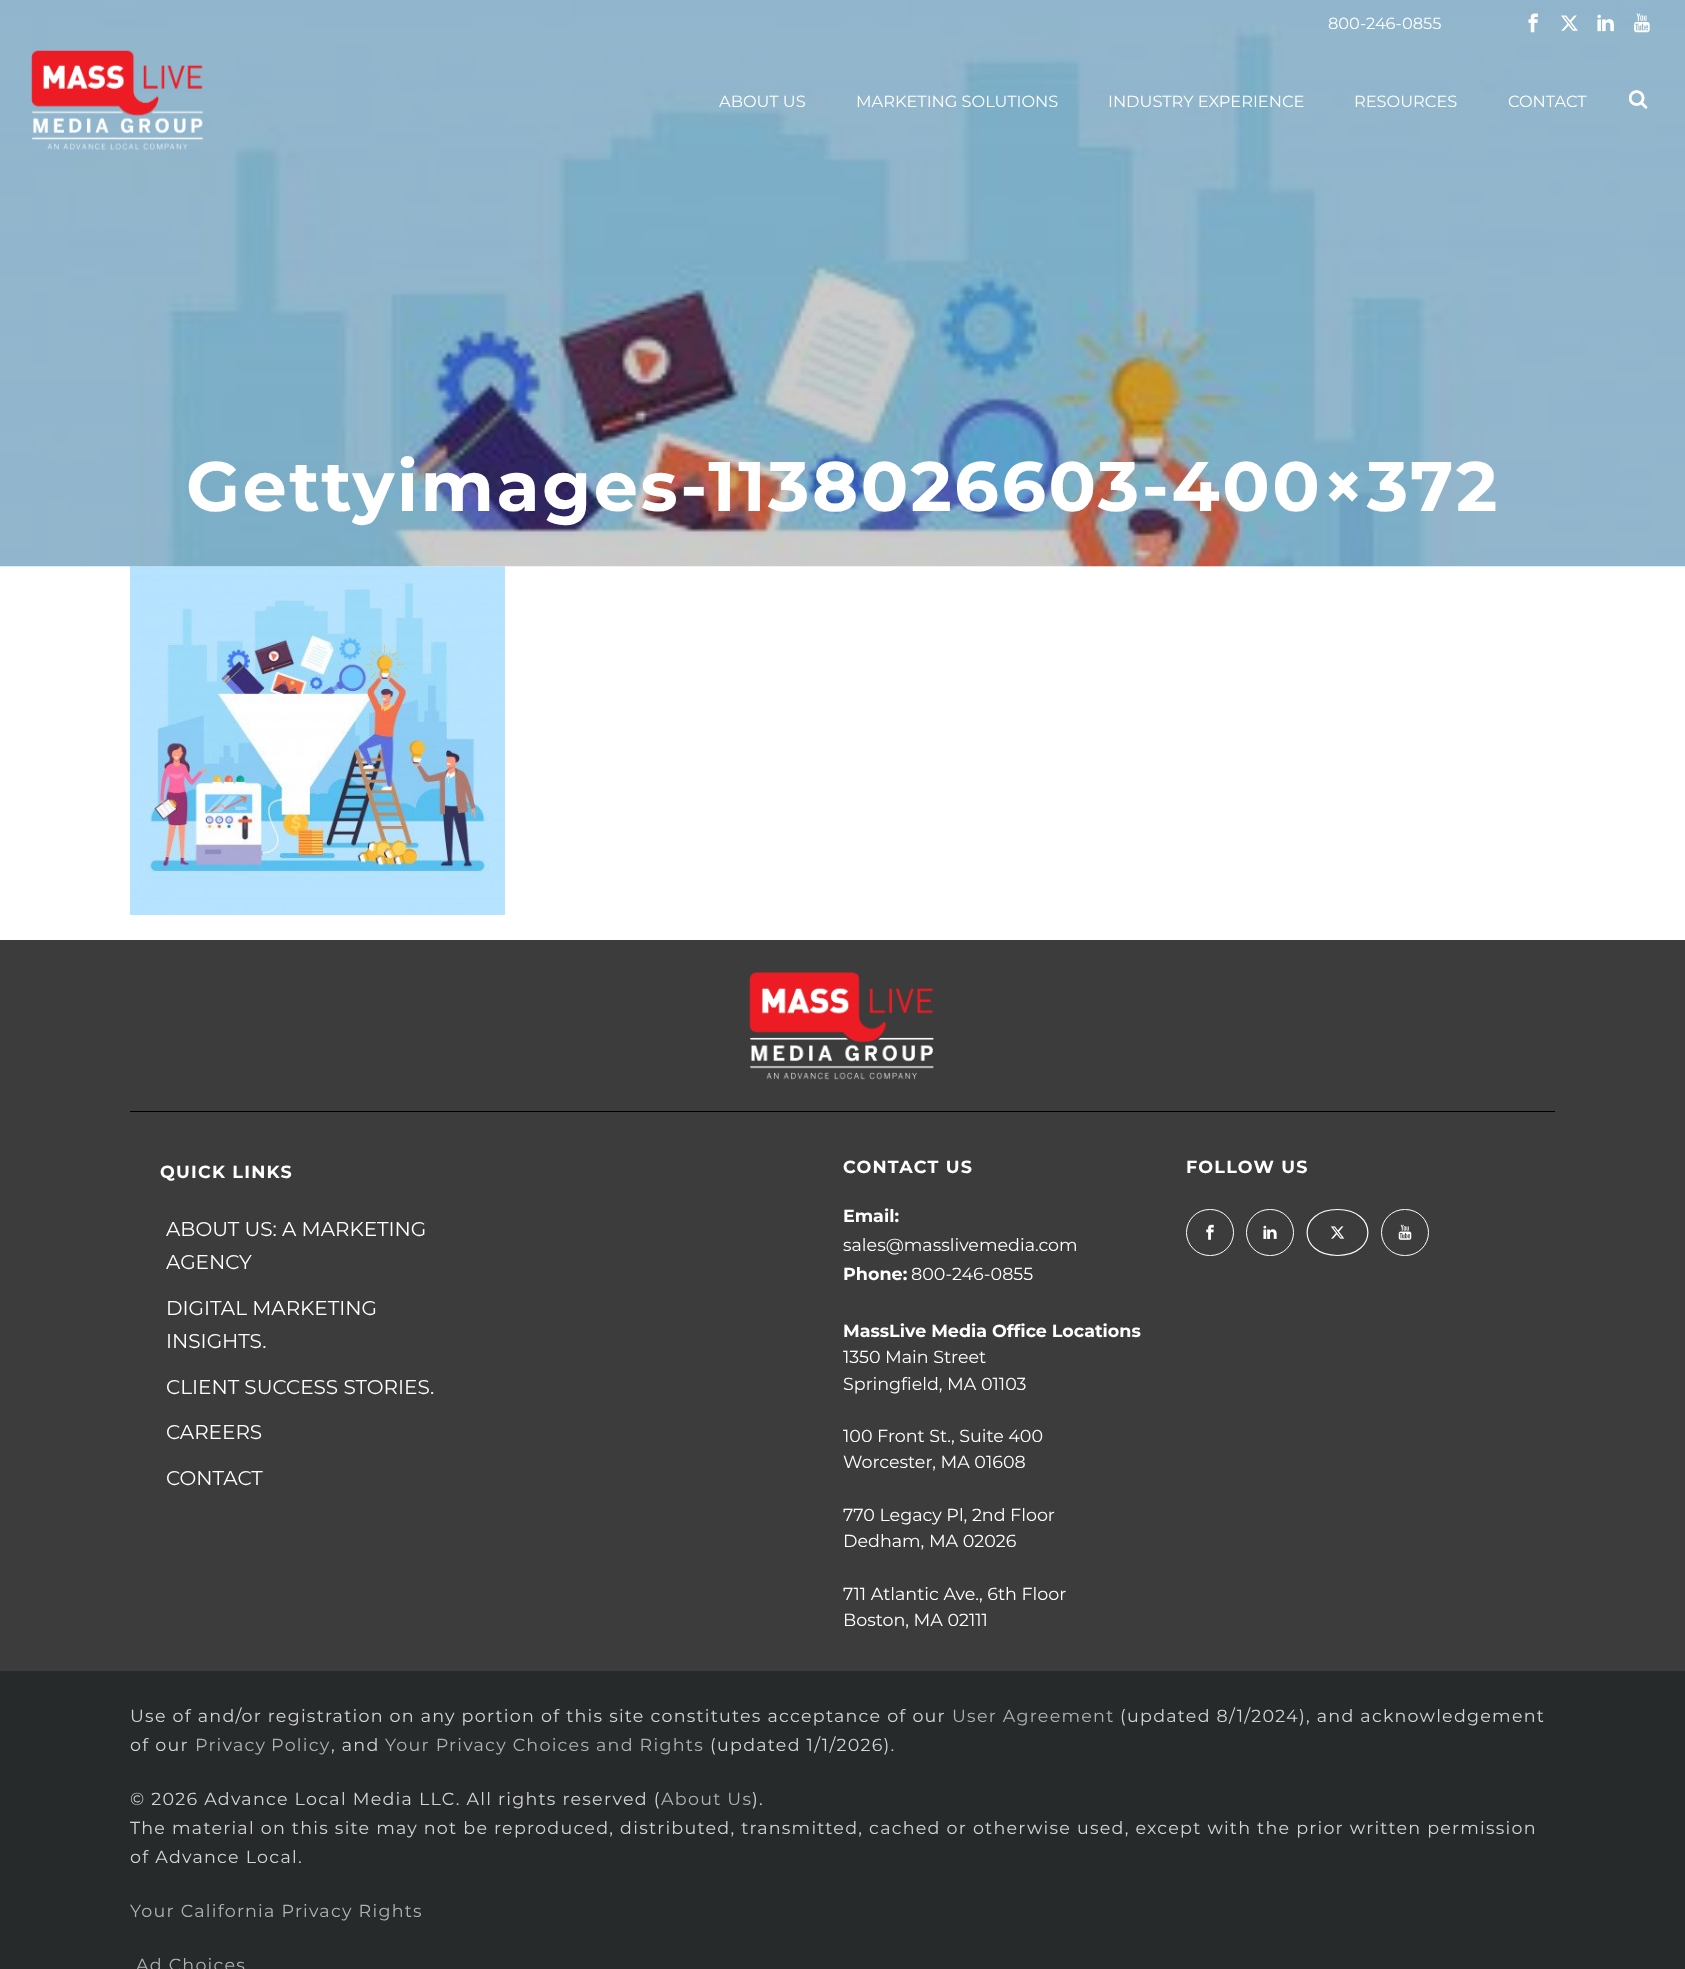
(async () => {
    const canvas = document.querySelector("canvas");
    canvas.width = 1685;
    canvas.height = 1969;
    const context = canvas.getContext("2d");
    context.miterLimit = 4;
    context.fontKerning = "normal";
    function write(s, x, y, font, color) {
        context.font = font;
        context.fillStyle = color;
        context.fillText(s, x, y);
    }
    function block(x, y, w, h, color) {
        context.fillStyle = color;
        context.fillRect(x, y, w, h);
    }
    async function photo(src, x, y, w, h) {
        const img = new Image();
        img.src = src;
        await img.decode();
        context.drawImage(img, x, y, w, h);
    }

    block(0, 0, 1685, 1969, "rgb(255, 255, 255)");
    await photo("media/8.png", 130, 566, 375, 349);
    await photo("media/7.png", 0, 0, 1685, 567);
    write("800-246-0855", 1328, 29, "16.25px Montserrat", "rgb(255, 255, 255)");
    await photo("media/1.png", 1528, 13, 10, 20);
    await photo("media/2.png", 1561, 15, 17, 16);
    await photo("media/3.png", 1597, 14, 17, 18);
    await photo("media/4.png", 1634, 13, 16, 20);
    await photo("media/5.png", 31, 50, 173, 100);
    write("ABOUT US", 719, 107, "16.25px Montserrat", "rgb(255, 255, 255)");
    write("MARKETING SOLUTIONS", 856, 107, "16.25px Montserrat", "rgb(255, 255, 255)");
    write("INDUSTRY EXPERIENCE", 1108, 107, "16.25px Montserrat", "rgb(255, 255, 255)");
    write("RESOURCES", 1354, 107, "16.25px Montserrat", "rgb(255, 255, 255)");
    write("CONTACT", 1508, 107, "16.25px Montserrat", "rgb(255, 255, 255)");
    await photo("media/6.png", 1629, 90, 19, 19);
    context.letterSpacing = "2.5px";
    write("Gettyimages-1138026603-400×372", 186, 511, "bold 70px Montserrat", "rgb(255, 255, 255)");
    block(0, 940, 1685, 731, "rgb(60, 60, 60)");
    await photo("media/9.png", 749, 971, 185, 109);
    block(130, 1111, 1425, 1, "rgb(0, 0, 0)");
    context.letterSpacing = "1.25px";
    write("QUICK LINKS", 160, 1178, "bold 17.5px Montserrat", "rgb(255, 255, 255)");
    context.letterSpacing = "0px";
    write("ABOUT US: A MARKETING", 166, 1236, "20px Montserrat", "rgb(255, 255, 255)");
    write("AGENCY", 166, 1269, "20px Montserrat", "rgb(255, 255, 255)");
    write("DIGITAL MARKETING", 166, 1315, "20px Montserrat", "rgb(255, 255, 255)");
    write("INSIGHTS.", 166, 1348, "20px Montserrat", "rgb(255, 255, 255)");
    write("CLIENT SUCCESS STORIES.", 166, 1394, "20px Montserrat", "rgb(255, 255, 255)");
    write("CAREERS", 166, 1439, "20px Montserrat", "rgb(255, 255, 255)");
    write("CONTACT", 166, 1485, "20px Montserrat", "rgb(255, 255, 255)");
    context.letterSpacing = "1.25px";
    write("CONTACT US", 843, 1173, "bold 17.5px Montserrat", "rgb(255, 255, 255)");
    context.letterSpacing = "0px";
    write("Email:", 843, 1222, "bold 17.5px Montserrat", "rgb(255, 255, 255)");
    write("sales@masslivemedia.com", 843, 1251, "17.5px Montserrat", "rgb(255, 255, 255)");
    write("Phone:", 843, 1280, "bold 17.5px Montserrat", "rgb(255, 255, 255)");
    write("800-246-0855", 911, 1280, "17.5px Montserrat", "rgb(255, 255, 255)");
    write("MassLive Media Office Locations", 843, 1337, "bold 17.5px Montserrat", "rgb(255, 255, 255)");
    write("1350 Main Street", 843, 1363, "17.5px Montserrat", "rgb(255, 255, 255)");
    write("Springfield, MA 01103", 843, 1390, "17.5px Montserrat", "rgb(255, 255, 255)");
    write("100 Front St., Suite 400", 843, 1442, "17.5px Montserrat", "rgb(255, 255, 255)");
    write("Worcester, MA 01608", 843, 1468, "17.5px Montserrat", "rgb(255, 255, 255)");
    write("770 Legacy Pl, 2nd Floor", 843, 1521, "17.5px Montserrat", "rgb(255, 255, 255)");
    write("Dedham, MA 02026", 843, 1547, "17.5px Montserrat", "rgb(255, 255, 255)");
    write("711 Atlantic Ave., 6th Floor", 843, 1600, "17.5px Montserrat", "rgb(255, 255, 255)");
    write("Boston, MA 02111", 843, 1626, "17.5px Montserrat", "rgb(255, 255, 255)");
    context.letterSpacing = "1.25px";
    write("FOLLOW US", 1186, 1173, "bold 17.5px Montserrat", "rgb(255, 255, 255)");
    context.beginPath();
    context.roundRect(1186.5, 1209.5, 47, 46, 23);
    context.strokeStyle = "rgb(255, 255, 255)";
    context.stroke();
    await photo("media/10.png", 1206, 1224, 8, 16);
    context.beginPath();
    context.roundRect(1246.5, 1209.5, 47, 46, 23);
    context.stroke();
    await photo("media/11.png", 1263, 1225, 14, 14);
    context.beginPath();
    context.moveTo(1337.5, 1209.5);
    context.bezierCurveTo(1378, 1209.5, 1378, 1255.5, 1337.5, 1255.5);
    context.bezierCurveTo(1297, 1255.5, 1297, 1209.5, 1337.5, 1209.5);
    context.closePath();
    context.lineWidth = 1.2;
    context.stroke();
    await photo("media/12.png", 1330, 1226, 15, 13);
    context.beginPath();
    context.roundRect(1381.5, 1209.5, 47, 46, 23);
    context.lineWidth = 1;
    context.stroke();
    await photo("media/13.png", 1398, 1224, 14, 16);
    block(0, 1671, 1685, 298, "rgb(39, 42, 43)");
    write("Use of and/or registration on any portion of this site constitutes acceptance of our", 130, 1722, "17.5px Montserrat", "rgb(212, 212, 213)");
    write("User Agreement", 952, 1722, "17.5px Montserrat", "rgb(177, 178, 179)");
    write("(updated 8/1/2024), and acknowledgement", 1120, 1722, "17.5px Montserrat", "rgb(212, 212, 213)");
    write("of our", 130, 1751, "17.5px Montserrat", "rgb(212, 212, 213)");
    context.wordSpacing = "-1px";
    write("Privacy Policy", 195, 1751, "17.5px Montserrat", "rgb(177, 178, 179)");
    context.wordSpacing = "0px";
    write(", and", 331, 1751, "17.5px Montserrat", "rgb(212, 212, 213)");
    write("Your Privacy Choices and Rights", 385, 1751, "17.5px Montserrat", "rgb(177, 178, 179)");
    write("(updated 1/1/2026).", 710, 1751, "17.5px Montserrat", "rgb(212, 212, 213)");
    write("© 2026 Advance Local Media LLC. All rights reserved (", 130, 1805, "17.5px Montserrat", "rgb(212, 212, 213)");
    write("About Us", 661, 1805, "17.5px Montserrat", "rgb(177, 178, 179)");
    write(").", 752, 1805, "17.5px Montserrat", "rgb(212, 212, 213)");
    write("The material on this site may not be reproduced, distributed, transmitted, cached or otherwise used, except with the prior written permission", 130, 1834, "17.5px Montserrat", "rgb(212, 212, 213)");
    write("of Advance Local.", 130, 1863, "17.5px Montserrat", "rgb(212, 212, 213)");
    write("Your California Privacy Rights", 130, 1917, "17.5px Montserrat", "rgb(177, 178, 179)");
    write("Ad Choices", 136, 1971, "17.5px Montserrat", "rgb(177, 178, 179)");
})();
